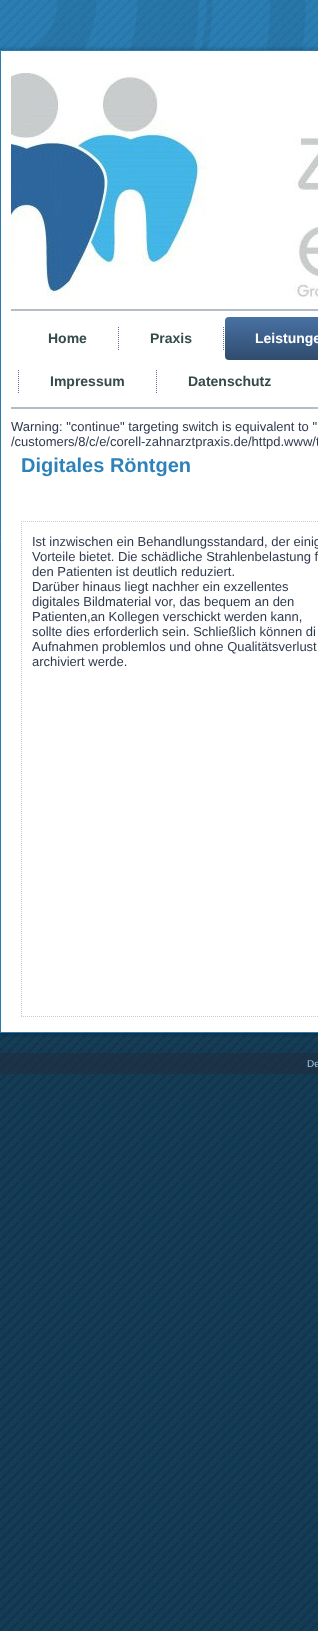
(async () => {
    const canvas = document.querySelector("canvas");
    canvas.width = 318;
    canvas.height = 1631;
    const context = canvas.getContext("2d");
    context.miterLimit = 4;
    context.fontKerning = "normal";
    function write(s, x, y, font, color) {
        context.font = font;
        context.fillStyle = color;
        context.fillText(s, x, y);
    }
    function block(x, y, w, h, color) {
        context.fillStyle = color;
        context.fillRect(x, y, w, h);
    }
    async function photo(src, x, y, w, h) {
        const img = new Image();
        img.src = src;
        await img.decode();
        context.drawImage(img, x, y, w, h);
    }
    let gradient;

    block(0, 0, 318, 1631, "rgb(255, 255, 255)");
    await photo("media/1.png", 0, 0, 318, 1631);
    context.fillStyle = "rgba(0, 0, 0, 0.15)";
    context.filter = "blur(1.5px)";
    context.beginPath();
    context.rect(-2, 48, 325, 987);
    context.fill();
    context.filter = "none";
    context.fillStyle = "rgb(255, 255, 255)";
    context.beginPath();
    context.rect(0.5, 50.5, 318, 982);
    context.fill();
    context.strokeStyle = "rgb(43, 125, 177)";
    context.stroke();
    await photo("media/2.png", 11, 73, 307, 238);
    block(11, 407, 307, 2, "rgb(181, 188, 198)");
    write("Home", 48, 343, "bold 14px Liberation Sans", "rgb(52, 75, 74)");
    await photo("media/3.png", 118, 327, 1, 23);
    write("Praxis", 150, 343, "bold 14px Liberation Sans", "rgb(52, 75, 74)");
    await photo("media/3.png", 223, 327, 1, 23);
    gradient = context.createLinearGradient(293, 317, 293, 360);
    gradient.addColorStop(0, "rgb(72, 113, 163)");
    gradient.addColorStop(1, "rgb(48, 76, 110)");
    context.fillStyle = gradient;
    context.beginPath();
    context.roundRect(225, 317, 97, 43, 4);
    context.fill();
    write("Leistunge", 255, 343, "bold 14px Liberation Sans", "rgb(255, 255, 255)");
    await photo("media/3.png", 18, 370, 1, 23);
    write("Impressum", 50, 386, "bold 14px Liberation Sans", "rgb(52, 75, 74)");
    await photo("media/3.png", 156, 370, 1, 23);
    write("Datenschutz", 188, 386, "bold 14px Liberation Sans", "rgb(52, 75, 74)");
    write("Warning: \"continue\" targeting switch is equivalent to \"", 11, 431, "13px Liberation Sans", "rgb(48, 58, 79)");
    write("/customers/8/c/e/corell-zahnarztpraxis.de/httpd.www/t", 11, 446, "13px Liberation Sans", "rgb(48, 58, 79)");
    write("Digitales Röntgen", 21, 472, "bold 20px Liberation Sans", "rgb(45, 131, 185)");
    context.beginPath();
    context.moveTo(21, 521.5);
    context.lineTo(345, 521.5);
    context.strokeStyle = "rgb(204, 204, 204)";
    context.setLineDash([1, 1]);
    context.stroke();
    context.beginPath();
    context.moveTo(21, 1016.5);
    context.lineTo(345, 1016.5);
    context.stroke();
    context.beginPath();
    context.moveTo(21.5, 521);
    context.lineTo(21.5, 1017);
    context.stroke();
    write("Ist inzwischen ein Behandlungsstandard, der einig", 32, 546, "13px Liberation Sans", "rgb(48, 58, 79)");
    write("Vorteile bietet. Die schädliche Strahlenbelastung f", 32, 561, "13px Liberation Sans", "rgb(48, 58, 79)");
    write("den Patienten ist deutlich reduziert.", 32, 576, "13px Liberation Sans", "rgb(48, 58, 79)");
    write("Darüber hinaus liegt nachher ein exzellentes", 32, 591, "13px Liberation Sans", "rgb(48, 58, 79)");
    write("digitales Bildmaterial vor, das bequem an den", 32, 606, "13px Liberation Sans", "rgb(48, 58, 79)");
    write("Patienten,an Kollegen verschickt werden kann,", 32, 621, "13px Liberation Sans", "rgb(48, 58, 79)");
    write("sollte dies erforderlich sein. Schließlich können di", 32, 636, "13px Liberation Sans", "rgb(48, 58, 79)");
    write("Aufnahmen problemlos und ohne Qualitätsverlust", 32, 651, "13px Liberation Sans", "rgb(48, 58, 79)");
    write("archiviert werde.", 32, 666, "13px Liberation Sans", "rgb(48, 58, 79)");
    block(0, 1053, 318, 21, "rgba(35, 41, 57, 0.5)");
    write("De", 307, 1067, "10px Liberation Sans", "rgb(161, 205, 232)");
})();
